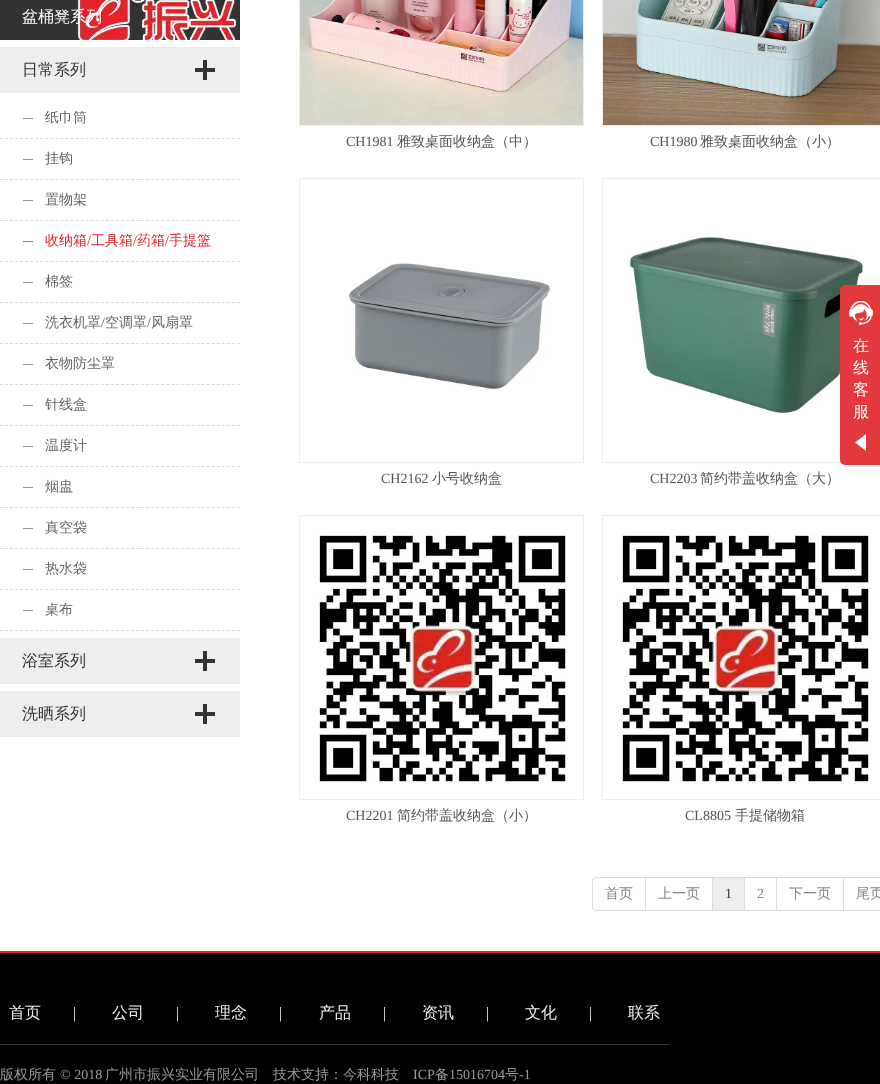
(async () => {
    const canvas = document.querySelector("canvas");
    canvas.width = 880;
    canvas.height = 1084;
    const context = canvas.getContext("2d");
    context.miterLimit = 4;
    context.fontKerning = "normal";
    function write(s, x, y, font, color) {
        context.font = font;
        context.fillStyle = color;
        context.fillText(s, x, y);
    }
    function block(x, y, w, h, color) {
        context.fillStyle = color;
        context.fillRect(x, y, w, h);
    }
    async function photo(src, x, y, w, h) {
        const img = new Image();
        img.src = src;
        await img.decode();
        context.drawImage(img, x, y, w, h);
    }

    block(0, 0, 880, 1084, "rgb(0, 0, 0)");
    block(0, 0, 880, 951, "rgb(255, 255, 255)");
    block(0, 0, 240, 40, "rgb(51, 51, 51)");
    await photo("media/1.png", 78, 0, 158, 40);
    write("盆桶凳系列", 22, 22, "500 16px WenQuanYi Zen Hei", "rgb(255, 255, 255)");
    block(0, 47, 240, 46, "rgb(238, 238, 238)");
    await photo("media/2.png", 195, 60, 20, 20);
    write("日常系列", 22, 75, "500 16px WenQuanYi Zen Hei", "rgb(51, 51, 51)");
    block(23, 118, 10, 1, "rgb(151, 151, 151)");
    context.beginPath();
    context.moveTo(0, 138.5);
    context.lineTo(240, 138.5);
    context.strokeStyle = "rgb(219, 219, 219)";
    context.setLineDash([3, 2.04]);
    context.stroke();
    write("纸巾筒", 45, 122, "500 14px WenQuanYi Zen Hei", "rgb(102, 102, 102)");
    block(23, 159, 10, 1, "rgb(151, 151, 151)");
    context.beginPath();
    context.moveTo(0, 179.5);
    context.lineTo(240, 179.5);
    context.stroke();
    write("挂钩", 45, 163, "500 14px WenQuanYi Zen Hei", "rgb(102, 102, 102)");
    block(23, 200, 10, 1, "rgb(151, 151, 151)");
    context.beginPath();
    context.moveTo(0, 220.5);
    context.lineTo(240, 220.5);
    context.stroke();
    write("置物架", 45, 204, "500 14px WenQuanYi Zen Hei", "rgb(102, 102, 102)");
    await photo("media/3.png", 20, 241, 13, 1);
    context.beginPath();
    context.moveTo(0, 261.5);
    context.lineTo(240, 261.5);
    context.stroke();
    write("收纳箱", 45, 245, "500 14px WenQuanYi Zen Hei", "rgb(230, 33, 41)");
    write("/", 87, 245, "14px Liberation Serif", "rgb(230, 33, 41)");
    write("工具箱", 91, 245, "500 14px WenQuanYi Zen Hei", "rgb(230, 33, 41)");
    write("/", 133, 245, "14px Liberation Serif", "rgb(230, 33, 41)");
    write("药箱", 137, 245, "500 14px WenQuanYi Zen Hei", "rgb(230, 33, 41)");
    write("/", 165, 245, "14px Liberation Serif", "rgb(230, 33, 41)");
    write("手提篮", 169, 245, "500 14px WenQuanYi Zen Hei", "rgb(230, 33, 41)");
    block(23, 282, 10, 1, "rgb(151, 151, 151)");
    context.beginPath();
    context.moveTo(0, 302.5);
    context.lineTo(240, 302.5);
    context.stroke();
    write("棉签", 45, 286, "500 14px WenQuanYi Zen Hei", "rgb(102, 102, 102)");
    block(23, 323, 10, 1, "rgb(151, 151, 151)");
    context.beginPath();
    context.moveTo(0, 343.5);
    context.lineTo(240, 343.5);
    context.stroke();
    write("洗衣机罩", 45, 327, "500 14px WenQuanYi Zen Hei", "rgb(102, 102, 102)");
    write("/", 101, 327, "14px Liberation Serif", "rgb(102, 102, 102)");
    write("空调罩", 105, 327, "500 14px WenQuanYi Zen Hei", "rgb(102, 102, 102)");
    write("/", 147, 327, "14px Liberation Serif", "rgb(102, 102, 102)");
    write("风扇罩", 151, 327, "500 14px WenQuanYi Zen Hei", "rgb(102, 102, 102)");
    block(23, 364, 10, 1, "rgb(151, 151, 151)");
    context.beginPath();
    context.moveTo(0, 384.5);
    context.lineTo(240, 384.5);
    context.stroke();
    write("衣物防尘罩", 45, 368, "500 14px WenQuanYi Zen Hei", "rgb(102, 102, 102)");
    block(23, 405, 10, 1, "rgb(151, 151, 151)");
    context.beginPath();
    context.moveTo(0, 425.5);
    context.lineTo(240, 425.5);
    context.stroke();
    write("针线盒", 45, 409, "500 14px WenQuanYi Zen Hei", "rgb(102, 102, 102)");
    block(23, 446, 10, 1, "rgb(151, 151, 151)");
    context.beginPath();
    context.moveTo(0, 466.5);
    context.lineTo(240, 466.5);
    context.stroke();
    write("温度计", 45, 450, "500 14px WenQuanYi Zen Hei", "rgb(102, 102, 102)");
    block(23, 487, 10, 1, "rgb(151, 151, 151)");
    context.beginPath();
    context.moveTo(0, 507.5);
    context.lineTo(240, 507.5);
    context.stroke();
    write("烟盅", 45, 491, "500 14px WenQuanYi Zen Hei", "rgb(102, 102, 102)");
    block(23, 528, 10, 1, "rgb(151, 151, 151)");
    context.beginPath();
    context.moveTo(0, 548.5);
    context.lineTo(240, 548.5);
    context.stroke();
    write("真空袋", 45, 532, "500 14px WenQuanYi Zen Hei", "rgb(102, 102, 102)");
    block(23, 569, 10, 1, "rgb(151, 151, 151)");
    context.beginPath();
    context.moveTo(0, 589.5);
    context.lineTo(240, 589.5);
    context.stroke();
    write("热水袋", 45, 573, "500 14px WenQuanYi Zen Hei", "rgb(102, 102, 102)");
    block(23, 610, 10, 1, "rgb(151, 151, 151)");
    context.beginPath();
    context.moveTo(0, 630.5);
    context.lineTo(240, 630.5);
    context.stroke();
    write("桌布", 45, 614, "500 14px WenQuanYi Zen Hei", "rgb(102, 102, 102)");
    block(0, 638, 240, 46, "rgb(238, 238, 238)");
    await photo("media/2.png", 195, 651, 20, 20);
    write("浴室系列", 22, 666, "500 16px WenQuanYi Zen Hei", "rgb(51, 51, 51)");
    block(0, 691, 240, 46, "rgb(238, 238, 238)");
    await photo("media/2.png", 195, 704, 20, 20);
    write("洗晒系列", 22, 719, "500 16px WenQuanYi Zen Hei", "rgb(51, 51, 51)");
    context.strokeStyle = "rgb(238, 238, 238)";
    context.setLineDash([]);
    context.strokeRect(299.5, -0.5, 284, 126);
    await photo("media/4.png", 300, 0, 283, 125);
    write("CH1981", 346, 146, "14px Liberation Serif", "rgb(85, 85, 85)");
    write("雅致桌面收纳盒（中）", 397, 146, "500 14px WenQuanYi Zen Hei", "rgb(85, 85, 85)");
    context.strokeRect(602.5, -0.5, 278, 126);
    await photo("media/5.png", 603, 0, 277, 125);
    write("CH1980", 650, 146, "14px Liberation Serif", "rgb(85, 85, 85)");
    write("雅致桌面收纳盒（小）", 700, 146, "500 14px WenQuanYi Zen Hei", "rgb(85, 85, 85)");
    context.strokeRect(299.5, 178.5, 284, 284);
    await photo("media/6.png", 348, 263, 203, 127);
    write("CH2162", 381, 483, "14px Liberation Serif", "rgb(85, 85, 85)");
    write("小号收纳盒", 432, 483, "500 14px WenQuanYi Zen Hei", "rgb(85, 85, 85)");
    context.strokeRect(602.5, 178.5, 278, 284);
    await photo("media/7.png", 630, 236, 234, 178);
    write("CH2203", 650, 483, "14px Liberation Serif", "rgb(85, 85, 85)");
    write("简约带盖收纳盒（大）", 700, 483, "500 14px WenQuanYi Zen Hei", "rgb(85, 85, 85)");
    context.strokeRect(299.5, 515.5, 284, 284);
    await photo("media/8.png", 318, 534, 248, 248);
    write("CH2201", 346, 820, "14px Liberation Serif", "rgb(85, 85, 85)");
    write("简约带盖收纳盒（小）", 397, 820, "500 14px WenQuanYi Zen Hei", "rgb(85, 85, 85)");
    context.strokeRect(602.5, 515.5, 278, 284);
    await photo("media/8.png", 621, 534, 248, 248);
    write("CL8805", 685, 820, "14px Liberation Serif", "rgb(85, 85, 85)");
    write("手提储物箱", 735, 820, "500 14px WenQuanYi Zen Hei", "rgb(85, 85, 85)");
    context.beginPath();
    context.roundRect(592.5, 877.5, 53, 33, [3.5, 0, 0, 3.5]);
    context.strokeStyle = "rgb(221, 221, 221)";
    context.stroke();
    write("首页", 605, 898, "500 14px WenQuanYi Zen Hei", "rgb(133, 133, 133)");
    context.strokeRect(645.5, 877.5, 67, 33);
    write("上一页", 658, 898, "500 14px WenQuanYi Zen Hei", "rgb(133, 133, 133)");
    context.strokeRect(744.5, 877.5, 32, 33);
    context.fillStyle = "rgb(238, 238, 238)";
    context.beginPath();
    context.rect(712.5, 877.5, 32, 33);
    context.fill();
    context.stroke();
    write("1", 725, 898, "14px Liberation Serif", "rgb(51, 51, 51)");
    write("2", 757, 898, "14px Liberation Serif", "rgb(133, 133, 133)");
    context.strokeRect(776.5, 877.5, 67, 33);
    write("下一页", 789, 898, "500 14px WenQuanYi Zen Hei", "rgb(133, 133, 133)");
    context.strokeRect(843.5, 877.5, 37, 33);
    write("尾页", 856, 898, "500 14px WenQuanYi Zen Hei", "rgb(133, 133, 133)");
    context.fillStyle = "rgb(228, 57, 60)";
    context.beginPath();
    context.roundRect(840, 285, 40, 180, [5, 0, 0, 5]);
    context.fill();
    await photo("media/9.png", 849, 301, 24, 24);
    write("在", 853, 351, "500 16px WenQuanYi Zen Hei", "rgb(255, 255, 255)");
    write("线", 853, 373, "500 16px WenQuanYi Zen Hei", "rgb(255, 255, 255)");
    write("客", 853, 395, "500 16px WenQuanYi Zen Hei", "rgb(255, 255, 255)");
    write("服", 853, 417, "500 16px WenQuanYi Zen Hei", "rgb(255, 255, 255)");
    await photo("media/10.png", 855, 434, 11, 17);
    block(0, 1044, 669, 1, "rgb(51, 51, 51)");
    write("首页", 9, 1018, "500 16px WenQuanYi Zen Hei", "rgb(238, 238, 238)");
    write("|", 73, 1018, "16px Liberation Serif", "rgb(238, 238, 238)");
    write("公司", 112, 1018, "500 16px WenQuanYi Zen Hei", "rgb(238, 238, 238)");
    write("|", 176, 1018, "16px Liberation Serif", "rgb(238, 238, 238)");
    write("理念", 215, 1018, "500 16px WenQuanYi Zen Hei", "rgb(238, 238, 238)");
    write("|", 279, 1018, "16px Liberation Serif", "rgb(238, 238, 238)");
    write("产品", 319, 1018, "500 16px WenQuanYi Zen Hei", "rgb(238, 238, 238)");
    write("|", 383, 1018, "16px Liberation Serif", "rgb(238, 238, 238)");
    write("资讯", 422, 1018, "500 16px WenQuanYi Zen Hei", "rgb(238, 238, 238)");
    write("|", 486, 1018, "16px Liberation Serif", "rgb(238, 238, 238)");
    write("文化", 525, 1018, "500 16px WenQuanYi Zen Hei", "rgb(238, 238, 238)");
    write("|", 589, 1018, "16px Liberation Serif", "rgb(238, 238, 238)");
    write("联系", 628, 1018, "500 16px WenQuanYi Zen Hei", "rgb(238, 238, 238)");
    block(0, 951, 880, 2, "rgb(230, 33, 41)");
    write("版权所有", 0, 1079, "500 14px WenQuanYi Zen Hei", "rgb(153, 153, 153)");
    write("© 2018", 60, 1079, "14px Liberation Serif", "rgb(153, 153, 153)");
    write("广州市振兴实业有限公司　技术支持：今科科技", 105, 1079, "500 14px WenQuanYi Zen Hei", "rgb(153, 153, 153)");
    write("ICP", 413, 1079, "14px Liberation Serif", "rgb(153, 153, 153)");
    write("备", 435, 1079, "500 14px WenQuanYi Zen Hei", "rgb(153, 153, 153)");
    write("15016704", 449, 1079, "14px Liberation Serif", "rgb(153, 153, 153)");
    write("号", 505, 1079, "500 14px WenQuanYi Zen Hei", "rgb(153, 153, 153)");
    write("-1", 519, 1079, "14px Liberation Serif", "rgb(153, 153, 153)");
})();
